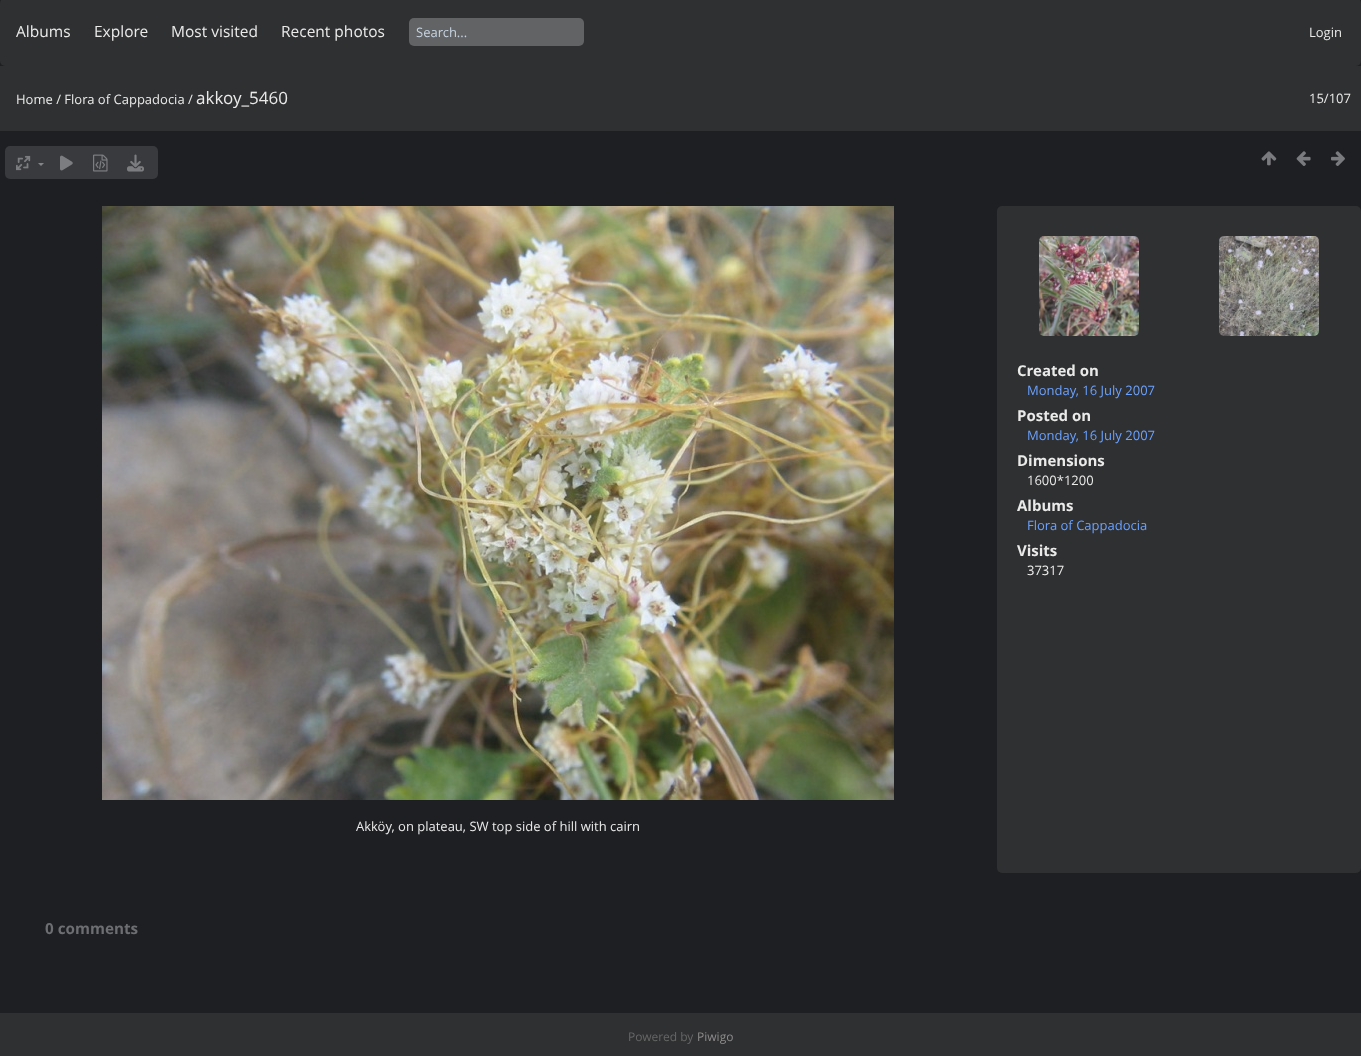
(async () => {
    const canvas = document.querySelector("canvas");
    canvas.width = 1361;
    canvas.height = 1056;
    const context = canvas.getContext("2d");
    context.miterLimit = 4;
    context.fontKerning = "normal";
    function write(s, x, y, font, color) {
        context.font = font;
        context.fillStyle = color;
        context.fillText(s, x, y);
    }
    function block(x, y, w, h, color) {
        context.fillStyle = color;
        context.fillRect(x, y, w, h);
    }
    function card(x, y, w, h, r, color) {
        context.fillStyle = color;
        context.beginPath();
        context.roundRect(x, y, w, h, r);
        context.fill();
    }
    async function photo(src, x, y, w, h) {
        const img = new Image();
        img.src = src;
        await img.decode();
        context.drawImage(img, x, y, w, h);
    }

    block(0, 0, 1361, 1056, "rgb(30, 31, 35)");
    card(0, -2, 1361, 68, 5, "rgb(47, 48, 50)");
    write("Albums", 16, 37, "15.5px Open Sans", "rgb(234, 234, 233)");
    write("Explore", 94, 37, "15.5px Open Sans", "rgb(234, 234, 233)");
    write("Most visited", 171, 37, "15.5px Open Sans", "rgb(234, 234, 233)");
    write("Recent photos", 281, 37, "15.5px Open Sans", "rgb(234, 234, 233)");
    card(409, 18, 175, 28, 5, "rgb(97, 99, 100)");
    write("Search...", 416, 37, "13px Open Sans", "rgb(199, 211, 225)");
    write("Login", 1309, 37, "13px Open Sans", "rgb(234, 234, 233)");
    block(0, 66, 1361, 65, "rgb(47, 48, 50)");
    write("Home / Flora of Cappadocia /", 16, 104, "13px Open Sans", "rgb(234, 234, 233)");
    write("akkoy_5460", 196, 104, "17px Open Sans", "rgb(234, 234, 233)");
    write("15/107", 1309, 103, "13px Open Sans", "rgb(234, 234, 233)");
    card(5, 146, 153, 33, 5, "rgb(57, 58, 61)");
    await photo("media/1.png", 16, 155, 15, 16);
    context.fillStyle = "rgb(132, 133, 136)";
    context.beginPath();
    context.moveTo(38, 163);
    context.lineTo(44, 163);
    context.lineTo(41, 166);
    context.closePath();
    context.fill();
    await photo("media/2.png", 60, 155, 13, 16);
    await photo("media/3.png", 93, 154, 15, 18);
    await photo("media/4.png", 127, 154, 17, 18);
    await photo("media/5.png", 1261, 151, 16, 15);
    await photo("media/6.png", 1296, 151, 15, 15);
    await photo("media/7.png", 1331, 151, 14, 15);
    card(997, 206, 364, 667, 5, "rgb(47, 48, 50)");
    await photo("media/8.png", 1039, 236, 100, 100);
    await photo("media/9.png", 1219, 236, 100, 100);
    write("Created on", 1017, 376, "bold 15px Open Sans", "rgb(234, 234, 233)");
    write("Monday, 16 July 2007", 1027, 395, "13px Open Sans", "rgb(107, 161, 255)");
    write("Posted on", 1017, 421, "bold 15px Open Sans", "rgb(234, 234, 233)");
    write("Monday, 16 July 2007", 1027, 440, "13px Open Sans", "rgb(107, 161, 255)");
    write("Dimensions", 1017, 466, "bold 15px Open Sans", "rgb(234, 234, 233)");
    write("1600*1200", 1027, 485, "13px Open Sans", "rgb(234, 234, 233)");
    write("Albums", 1017, 511, "bold 15px Open Sans", "rgb(234, 234, 233)");
    write("Flora of Cappadocia", 1027, 530, "13px Open Sans", "rgb(107, 161, 255)");
    write("Visits", 1017, 556, "bold 15px Open Sans", "rgb(234, 234, 233)");
    write("37317", 1027, 575, "13px Open Sans", "rgb(234, 234, 233)");
    await photo("media/10.png", 102, 206, 792, 594);
    write("Akköy, on plateau, SW top side of hill with cairn", 356, 831, "13px Open Sans", "rgb(234, 234, 233)");
    write("0 comments", 45, 934, "bold 15.25px Open Sans", "rgb(109, 110, 113)");
    block(0, 1013, 1361, 43, "rgb(47, 48, 50)");
    write("Powered by", 628, 1041, "12px Open Sans", "rgb(102, 102, 102)");
    write("Piwigo", 697, 1041, "12px Open Sans", "rgb(141, 139, 139)");
})();
